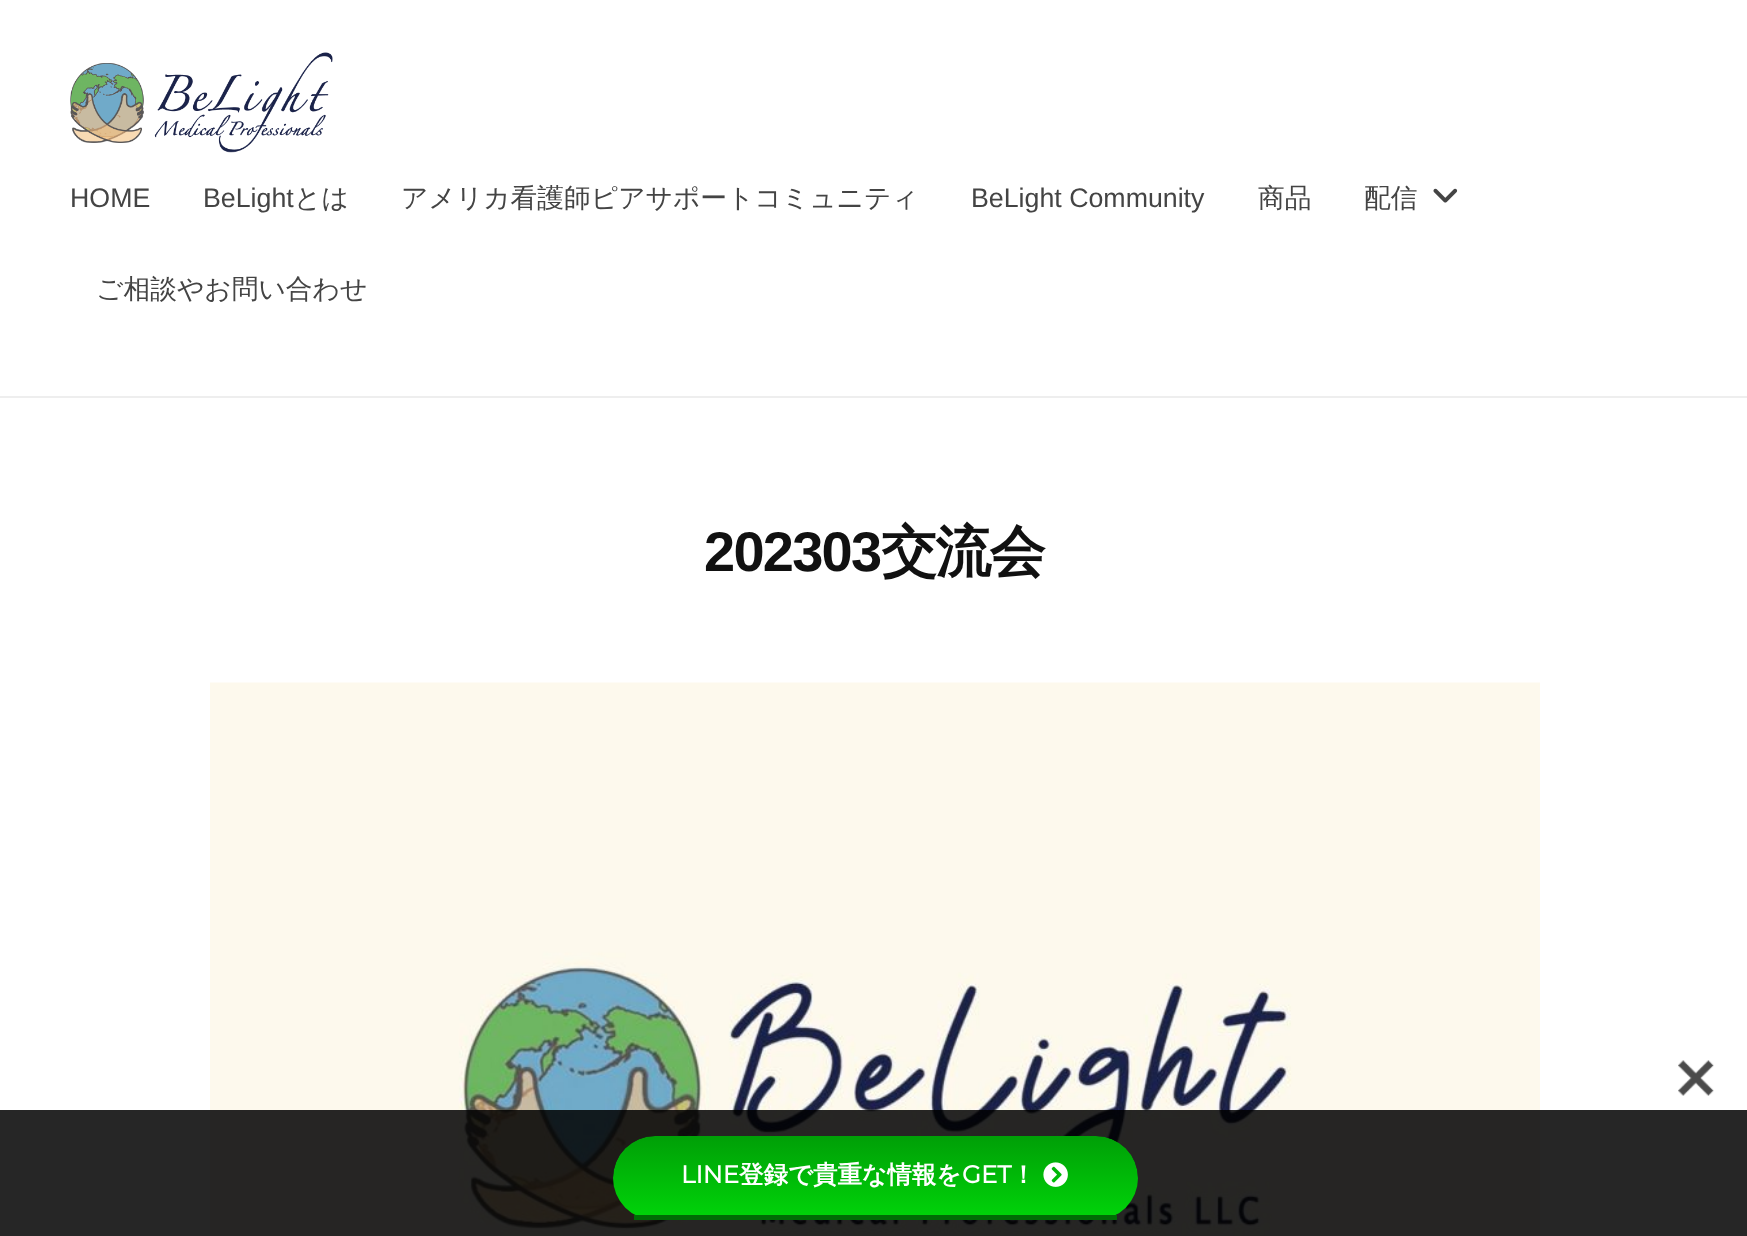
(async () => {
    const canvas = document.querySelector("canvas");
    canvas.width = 1747;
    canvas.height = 1236;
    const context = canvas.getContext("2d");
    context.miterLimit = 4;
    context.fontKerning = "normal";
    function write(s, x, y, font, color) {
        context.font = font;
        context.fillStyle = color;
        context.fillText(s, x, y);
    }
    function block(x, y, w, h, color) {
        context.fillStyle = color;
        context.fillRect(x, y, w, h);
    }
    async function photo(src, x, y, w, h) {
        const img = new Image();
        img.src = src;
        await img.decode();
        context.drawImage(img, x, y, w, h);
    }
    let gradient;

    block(0, 0, 1747, 1236, "rgb(255, 255, 255)");
    block(0, 396, 1747, 2, "rgb(238, 238, 238)");
    await photo("media/1.png", 70, 52, 263, 101);
    write("HOME", 70, 207, "26.75px Liberation Sans", "rgb(68, 68, 68)");
    write("BeLight", 203, 207, "26.75px Liberation Sans", "rgb(68, 68, 68)");
    write("とは", 294, 207, "500 26.75px WenQuanYi Zen Hei", "rgb(68, 68, 68)");
    write("アメリカ看護師ピアサポートコミュニティ", 401, 207, "500 26.75px WenQuanYi Zen Hei", "rgb(68, 68, 68)");
    write("BeLight Community", 971, 207, "26.75px Liberation Sans", "rgb(68, 68, 68)");
    write("商品", 1258, 207, "500 26.75px WenQuanYi Zen Hei", "rgb(68, 68, 68)");
    write("配信", 1364, 207, "500 26.75px WenQuanYi Zen Hei", "rgb(68, 68, 68)");
    await photo("media/2.png", 1433, 188, 25, 15);
    write("ご相談やお問い合わせ", 96, 298, "500 26.75px WenQuanYi Zen Hei", "rgb(68, 68, 68)");
    context.letterSpacing = "-1.75px";
    write("202303", 704, 571, "bold 56px Liberation Sans", "rgb(17, 17, 17)");
    write("交流会", 881, 571, "bold 56px WenQuanYi Zen Hei", "rgb(17, 17, 17)");
    await photo("media/3.png", 210, 682, 1330, 554);
    block(0, 1110, 1747, 126, "rgba(0, 0, 0, 0.85)");
    await photo("media/4.png", 1678, 1060, 36, 36);
    context.save();
    context.beginPath();
    context.roundRect(613, 1136, 525, 84, 42);
    context.clip();
    gradient = context.createLinearGradient(875, 1136, 875, 1215);
    gradient.addColorStop(0, "rgb(0, 159, 7)");
    gradient.addColorStop(1, "rgb(0, 210, 9)");
    context.fillStyle = gradient;
    context.beginPath();
    context.roundRect(613, 1136, 525, 79, [42, 42, 0, 0]);
    context.fill();
    context.restore();
    block(634, 1215, 483, 5, "rgb(0, 108, 5)");
    context.letterSpacing = "0px";
    write("LINE", 681, 1183, "bold 24.5px Montserrat", "rgb(255, 255, 255)");
    write("登録で貴重な情報を", 739, 1183, "bold 24.5px WenQuanYi Zen Hei", "rgb(255, 255, 255)");
    write("GET", 962, 1183, "bold 24.5px Montserrat", "rgb(255, 255, 255)");
    write("！", 1011, 1183, "bold 24.5px WenQuanYi Zen Hei", "rgb(255, 255, 255)");
    await photo("media/5.png", 1043, 1162, 25, 25);
})();
